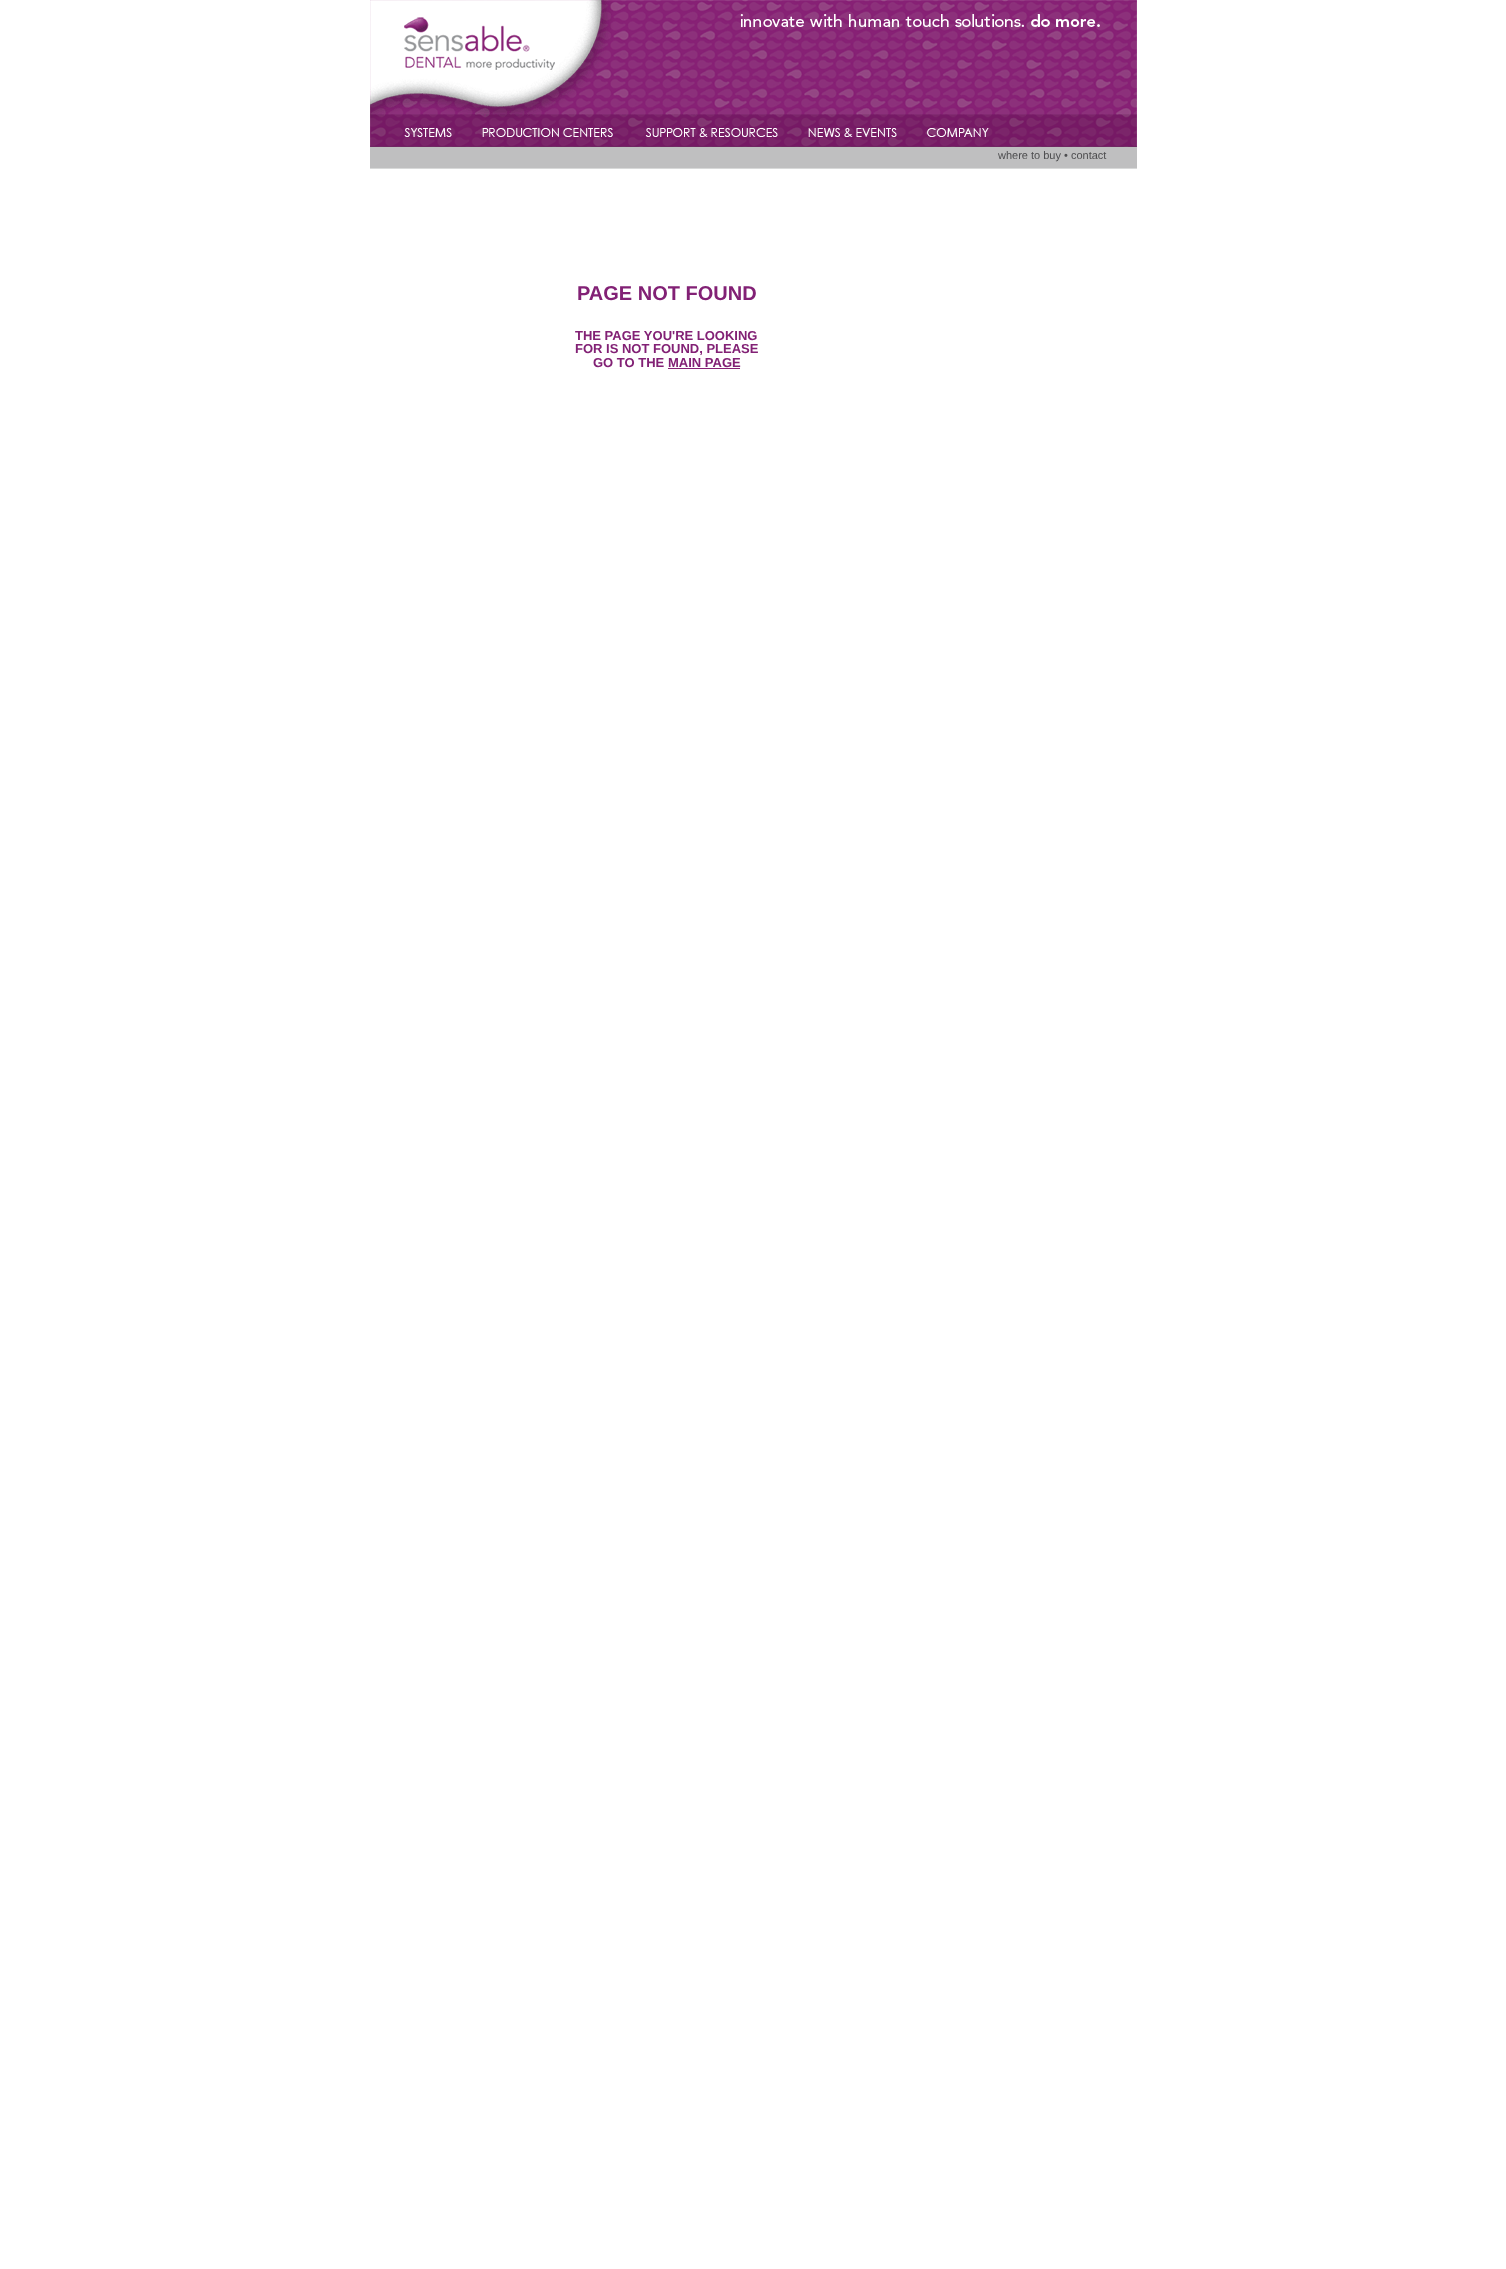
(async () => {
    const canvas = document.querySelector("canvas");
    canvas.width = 1506;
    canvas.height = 2269;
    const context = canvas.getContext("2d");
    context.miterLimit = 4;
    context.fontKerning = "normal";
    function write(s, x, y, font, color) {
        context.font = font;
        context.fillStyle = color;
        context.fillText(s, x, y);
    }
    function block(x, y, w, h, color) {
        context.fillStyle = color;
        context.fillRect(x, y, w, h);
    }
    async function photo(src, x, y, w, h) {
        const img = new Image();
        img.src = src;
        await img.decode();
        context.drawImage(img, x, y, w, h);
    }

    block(0, 0, 1506, 2269, "rgb(255, 255, 255)");
    await photo("media/1.png", 370, 0, 767, 116);
    await photo("media/2.png", 370, 116, 34, 31);
    await photo("media/3.png", 404, 116, 48, 31);
    await photo("media/4.png", 452, 116, 30, 31);
    await photo("media/5.png", 482, 116, 134, 31);
    await photo("media/6.png", 616, 116, 30, 31);
    await photo("media/7.png", 646, 116, 132, 31);
    await photo("media/8.png", 778, 116, 30, 31);
    await photo("media/9.png", 808, 116, 89, 31);
    await photo("media/10.png", 897, 116, 30, 31);
    await photo("media/11.png", 927, 116, 62, 31);
    await photo("media/12.png", 989, 116, 148, 31);
    block(370, 147, 767, 21, "rgb(191, 191, 192)");
    block(370, 168, 767, 1, "rgb(216, 217, 217)");
    write("where to buy • contact", 998, 159, "11px Liberation Sans", "rgb(77, 77, 79)");
    write("PAGE NOT FOUND", 577, 300, "bold 20px Liberation Sans", "rgb(130, 33, 117)");
    write("THE PAGE YOU'RE LOOKING", 575, 340, "bold 13px Liberation Sans", "rgb(130, 33, 117)");
    write("FOR IS NOT FOUND, PLEASE", 575, 353, "bold 13px Liberation Sans", "rgb(130, 33, 117)");
    write("GO TO THE", 593, 367, "bold 13px Liberation Sans", "rgb(130, 33, 117)");
    write("MAIN PAGE", 668, 367, "bold 13px Liberation Sans", "rgb(130, 33, 117)");
    block(668, 368, 72, 1, "rgb(134, 33, 117)");
})();
